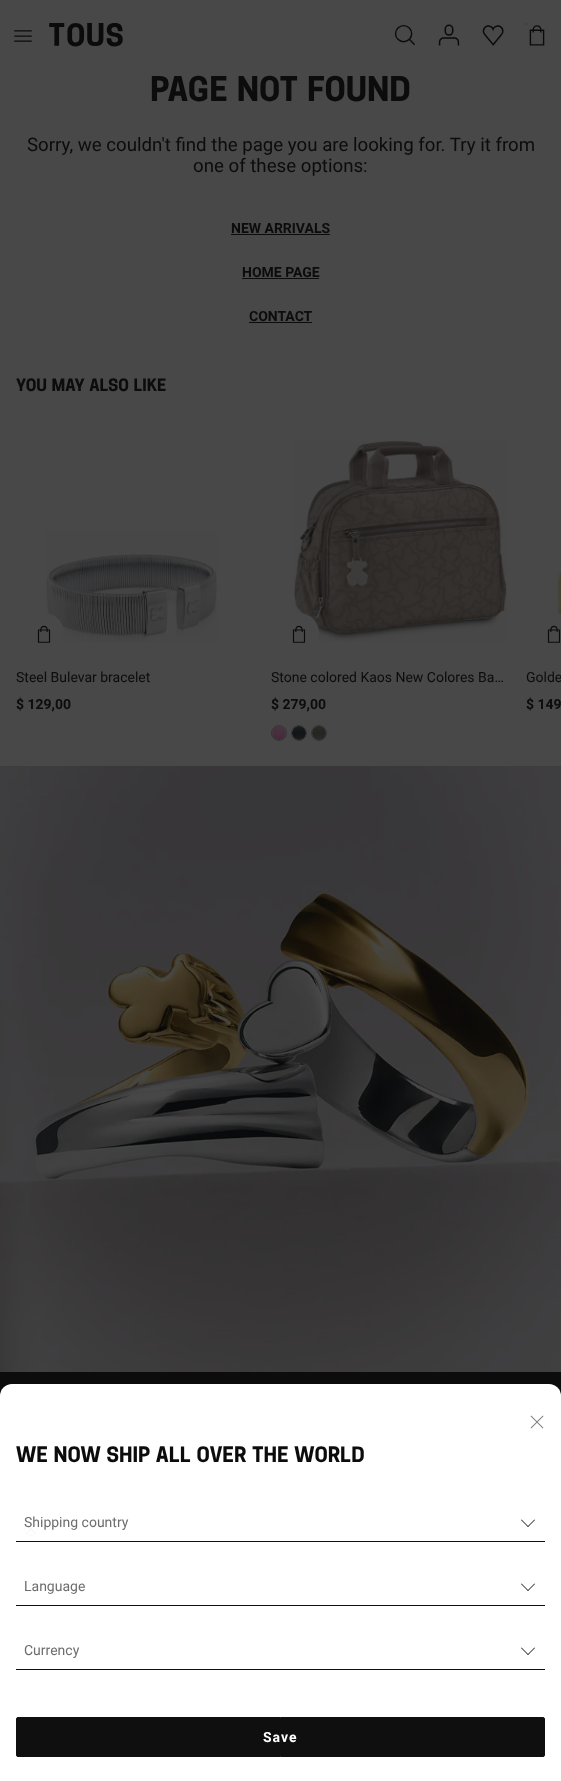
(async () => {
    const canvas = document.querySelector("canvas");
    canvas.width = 561;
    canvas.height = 1781;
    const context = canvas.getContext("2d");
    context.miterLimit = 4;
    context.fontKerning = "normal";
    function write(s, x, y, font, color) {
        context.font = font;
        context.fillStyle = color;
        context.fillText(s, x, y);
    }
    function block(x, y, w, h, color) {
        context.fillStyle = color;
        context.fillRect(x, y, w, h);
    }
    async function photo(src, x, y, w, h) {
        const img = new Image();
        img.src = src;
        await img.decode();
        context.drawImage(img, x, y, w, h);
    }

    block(0, 0, 561, 1781, "rgb(72, 72, 72)");
    await photo("media/1.png", 14, 30, 18, 12);
    await photo("media/2.png", 49, 23, 74, 24);
    await photo("media/3.png", 394, 25, 21, 21);
    await photo("media/4.png", 438, 24, 22, 22);
    await photo("media/5.png", 482, 25, 22, 21);
    context.fillStyle = "rgb(60, 60, 60)";
    context.beginPath();
    context.arc(526, 24, 1, 0, Math.PI * 2);
    context.fill();
    await photo("media/6.png", 529, 25, 16, 21);
    write("PAGE NOT FOUND", 150, 101, "bold 32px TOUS", "rgb(12, 12, 12)");
    write("Sorry, we couldn't find the page you are looking for. Try it from", 27, 151, "18.7px Roboto", "rgb(12, 12, 12)");
    write("one of these options:", 193, 172, "18.7px Roboto", "rgb(12, 12, 12)");
    write("NEW ARRIVALS", 231, 233, "bold 14px Roboto", "rgb(12, 12, 12)");
    block(231, 234, 99, 1, "rgb(12, 12, 12)");
    write("HOME PAGE", 242, 277, "bold 14px Roboto", "rgb(12, 12, 12)");
    block(242, 278, 77, 1, "rgb(12, 12, 12)");
    write("CONTACT", 249, 321, "bold 14px Roboto", "rgb(12, 12, 12)");
    block(249, 322, 63, 1, "rgb(12, 12, 12)");
    write("YOU MAY ALSO LIKE", 16, 391, "bold 16px TOUS", "rgb(12, 12, 12)");
    await photo("media/8.png", 46, 530, 171, 113);
    context.fillStyle = "rgb(72, 72, 72)";
    context.beginPath();
    context.arc(44, 633, 20, 0, Math.PI * 2);
    context.fill();
    await photo("media/7.png", 37, 625, 14, 18);
    write("Steel Bulevar bracelet", 16, 682, "14px Roboto", "rgb(12, 12, 12)");
    write("$ 129,00", 16, 709, "bold 14px Roboto", "rgb(12, 12, 12)");
    await photo("media/9.png", 294, 441, 213, 201);
    context.fillStyle = "rgb(72, 72, 72)";
    context.beginPath();
    context.arc(299, 633, 20, 0, Math.PI * 2);
    context.fill();
    await photo("media/7.png", 292, 625, 14, 18);
    write("Stone colored Kaos New Colores Ba…", 271, 682, "14px Roboto", "rgb(12, 12, 12)");
    write("$ 279,00", 271, 709, "bold 14px Roboto", "rgb(12, 12, 12)");
    context.beginPath();
    context.arc(279, 733, 7.5, 0, Math.PI * 2);
    context.strokeStyle = "rgb(53, 53, 53)";
    context.stroke();
    await photo("media/10.png", 272, 726, 14, 14);
    context.beginPath();
    context.arc(299, 733, 7.5, 0, Math.PI * 2);
    context.stroke();
    await photo("media/11.png", 292, 726, 14, 14);
    context.beginPath();
    context.arc(319, 733, 7.5, 0, Math.PI * 2);
    context.stroke();
    await photo("media/12.png", 312, 726, 14, 14);
    await photo("media/13.png", 557, 571, 4, 44);
    context.fillStyle = "rgb(72, 72, 72)";
    context.beginPath();
    context.arc(554, 633, 20, 0, Math.PI * 2);
    context.fill();
    await photo("media/7.png", 547, 625, 14, 18);
    write("Golde", 526, 682, "14px Roboto", "rgb(12, 12, 12)");
    write("$ 149", 526, 709, "bold 14px Roboto", "rgb(12, 12, 12)");
    await photo("media/14.png", 0, 766, 561, 606);
    block(0, 1372, 561, 24, "rgb(12, 12, 12)");
    context.fillStyle = "rgb(255, 255, 255)";
    context.beginPath();
    context.roundRect(0, 1384, 561, 397, [12, 12, 0, 0]);
    context.fill();
    await photo("media/15.png", 530, 1415, 14, 14);
    write("WE NOW SHIP ALL OVER THE WORLD", 16, 1462, "bold 20px TOUS", "rgb(12, 12, 12)");
    await photo("media/16.png", 24, 1522, 14, 14);
    write("Shipping country", 24, 1527, "14px Roboto", "rgb(109, 109, 109)");
    context.fillStyle = "rgb(15, 15, 16)";
    context.beginPath();
    context.moveTo(535, 1520);
    context.lineTo(528, 1527);
    context.lineTo(527.5, 1526.5);
    context.lineTo(534.5, 1519.5);
    context.closePath();
    context.fill();
    context.beginPath();
    context.moveTo(528.5, 1526.5);
    context.lineTo(528, 1527);
    context.lineTo(521, 1520);
    context.lineTo(521.5, 1519.5);
    context.closePath();
    context.fill();
    block(16, 1541, 529, 1, "rgb(15, 15, 16)");
    write("Language", 24, 1591, "14px Roboto", "rgb(109, 109, 109)");
    context.fillStyle = "rgb(15, 15, 16)";
    context.beginPath();
    context.moveTo(535, 1584);
    context.lineTo(528, 1591);
    context.lineTo(527.5, 1590.5);
    context.lineTo(534.5, 1583.5);
    context.closePath();
    context.fill();
    context.beginPath();
    context.moveTo(528.5, 1590.5);
    context.lineTo(528, 1591);
    context.lineTo(521, 1584);
    context.lineTo(521.5, 1583.5);
    context.closePath();
    context.fill();
    block(16, 1605, 529, 1, "rgb(15, 15, 16)");
    write("Currency", 24, 1655, "14px Roboto", "rgb(109, 109, 109)");
    context.fillStyle = "rgb(15, 15, 16)";
    context.beginPath();
    context.moveTo(535, 1648);
    context.lineTo(528, 1655);
    context.lineTo(527.5, 1654.5);
    context.lineTo(534.5, 1647.5);
    context.closePath();
    context.fill();
    context.beginPath();
    context.moveTo(528.5, 1654.5);
    context.lineTo(528, 1655);
    context.lineTo(521, 1648);
    context.lineTo(521.5, 1647.5);
    context.closePath();
    context.fill();
    block(16, 1669, 529, 1, "rgb(15, 15, 16)");
    context.beginPath();
    context.roundRect(16.5, 1717.5, 528, 39, 1.5);
    context.fill();
    context.strokeStyle = "rgb(15, 15, 16)";
    context.stroke();
    context.letterSpacing = "1px";
    write("Save", 263, 1742, "bold 14px Roboto", "rgb(255, 255, 255)");
})();
